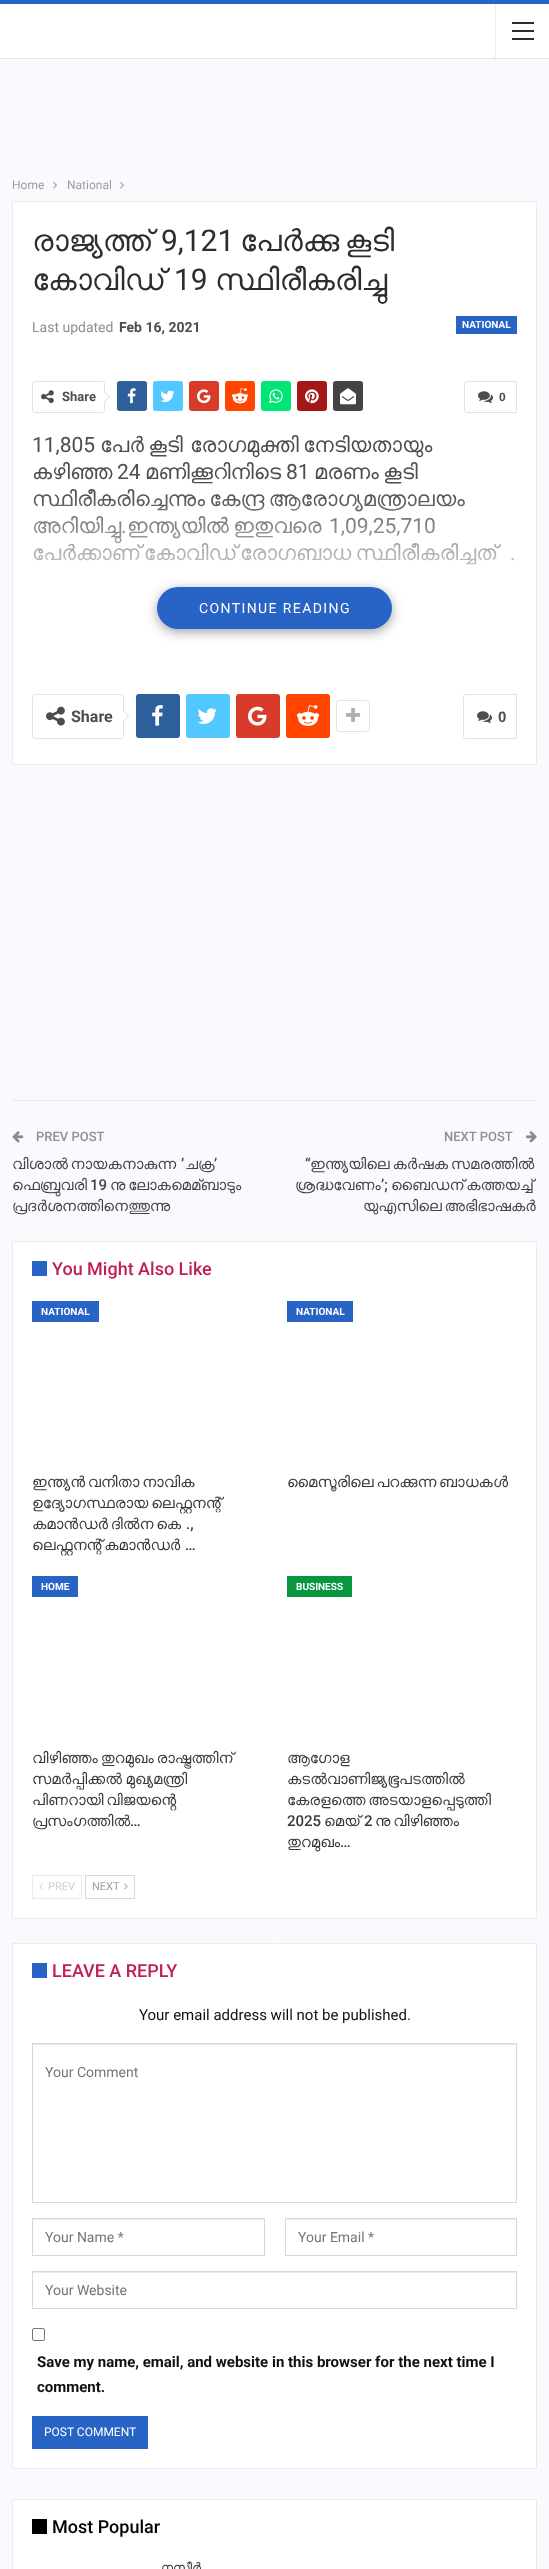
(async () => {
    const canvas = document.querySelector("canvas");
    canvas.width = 549;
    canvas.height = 2569;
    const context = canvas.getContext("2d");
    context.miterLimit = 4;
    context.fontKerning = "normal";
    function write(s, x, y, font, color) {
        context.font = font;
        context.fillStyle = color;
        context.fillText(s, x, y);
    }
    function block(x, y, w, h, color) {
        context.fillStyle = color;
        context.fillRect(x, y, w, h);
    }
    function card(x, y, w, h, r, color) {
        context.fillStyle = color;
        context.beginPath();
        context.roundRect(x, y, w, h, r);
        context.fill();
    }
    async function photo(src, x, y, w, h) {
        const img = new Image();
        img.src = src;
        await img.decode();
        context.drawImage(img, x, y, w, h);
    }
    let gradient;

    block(0, 0, 549, 2569, "rgb(40, 99, 198)");
    block(0, 59, 549, 2510, "rgb(249, 250, 253)");
    block(0, 4, 549, 54, "rgb(255, 255, 255)");
    block(0, 58, 549, 1, "rgb(229, 229, 229)");
    block(495, 4, 1, 54, "rgb(237, 237, 237)");
    block(512, 30, 22, 2, "rgb(44, 44, 44)");
    block(512, 22, 22, 2, "rgb(44, 44, 44)");
    block(512, 38, 22, 2, "rgb(44, 44, 44)");
    write("Home", 12, 189, "12px Roboto", "rgb(158, 158, 158)");
    await photo("media/1.png", 53, 181, 4, 8);
    write("National", 67, 189, "12px Roboto", "rgb(158, 158, 158)");
    await photo("media/1.png", 120, 181, 4, 8);
    context.fillStyle = "rgb(255, 255, 255)";
    context.beginPath();
    context.rect(12.5, 201.5, 524, 563);
    context.fill();
    context.strokeStyle = "rgb(235, 235, 235)";
    context.stroke();
    write("രാജ്യത്ത്", 32, 251, "30px FreeSans", "rgb(45, 45, 45)");
    write("9,121", 161, 251, "30px Roboto", "rgb(45, 45, 45)");
    context.wordSpacing = "-2px";
    write("പേര്‍ക്കു കൂടി", 240, 251, "30px FreeSans", "rgb(45, 45, 45)");
    context.wordSpacing = "0px";
    write("കോവിഡ്", 32, 290, "30px FreeSans", "rgb(45, 45, 45)");
    write("19", 174, 290, "30px Roboto", "rgb(45, 45, 45)");
    write("സ്ഥിരീകരിച്ചു", 215, 290, "30px FreeSans", "rgb(45, 45, 45)");
    write("Last updated", 32, 332, "14px Roboto", "rgb(143, 143, 143)");
    write("Feb 16, 2021", 119, 332, "bold 14px Roboto", "rgb(77, 77, 77)");
    block(456, 316, 61, 18, "rgb(40, 99, 198)");
    write("NATIONAL", 462, 328, "bold 10px Roboto", "rgb(255, 255, 255)");
    context.beginPath();
    context.roundRect(32.5, 381.5, 72, 31, 2.5);
    context.strokeStyle = "rgb(226, 226, 226)";
    context.stroke();
    await photo("media/2.png", 41, 390, 13, 14);
    write("Share", 62, 401, "bold 13px Roboto", "rgb(77, 77, 77)");
    context.fillStyle = "rgb(215, 215, 215)";
    context.beginPath();
    context.moveTo(104, 403);
    context.lineTo(104, 391);
    context.lineTo(110, 397);
    context.closePath();
    context.fill();
    context.fillStyle = "rgb(255, 255, 255)";
    context.beginPath();
    context.moveTo(104, 402);
    context.lineTo(104, 392);
    context.lineTo(109, 397);
    context.closePath();
    context.fill();
    card(117, 381, 30, 30, 3, "rgb(45, 95, 154)");
    await photo("media/3.png", 127, 388, 9, 16);
    card(153, 381, 30, 30, 3, "rgb(83, 199, 255)");
    await photo("media/4.png", 160, 390, 15, 12);
    card(189, 381, 30, 30, 3, "rgb(217, 59, 43)");
    await photo("media/5.png", 197, 389, 14, 15);
    card(225, 381, 30, 30, 3, "rgb(255, 69, 0)");
    await photo("media/6.png", 232, 388, 16, 16);
    card(261, 381, 30, 30, 3, "rgb(0, 230, 118)");
    await photo("media/7.png", 269, 389, 14, 15);
    card(297, 381, 30, 30, 3, "rgb(164, 23, 25)");
    await photo("media/8.png", 305, 389, 14, 15);
    card(333, 381, 30, 30, 3, "rgb(68, 68, 68)");
    await photo("media/9.png", 340, 388, 16, 17);
    context.beginPath();
    context.roundRect(464.5, 381.5, 52, 31, [2.5, 0, 0, 2.5]);
    context.stroke();
    await photo("media/10.png", 478, 391, 15, 12);
    write("0", 499, 401, "bold 12px Liberation Sans", "rgb(77, 77, 77)");
    write("11,805", 32, 452, "21px Roboto", "rgb(77, 77, 77)");
    context.wordSpacing = "-1px";
    write("പേര്‍ കൂടി", 100, 452, "21px FreeSans", "rgb(77, 77, 77)");
    context.wordSpacing = "0px";
    write("രോഗമുക്തി", 190, 452, "21px FreeSans", "rgb(77, 77, 77)");
    write("നേടിയതായും", 303, 452, "21px FreeSans", "rgb(77, 77, 77)");
    write("കഴിഞ്ഞ", 32, 479, "21px FreeSans", "rgb(77, 77, 77)");
    write("24", 117, 479, "21px Roboto", "rgb(77, 77, 77)");
    write("മണിക്കൂറിനിടെ", 145, 479, "21px FreeSans", "rgb(77, 77, 77)");
    write("81", 286, 479, "21px Roboto", "rgb(77, 77, 77)");
    context.wordSpacing = "-1px";
    write("മരണം കൂടി", 314, 479, "21px FreeSans", "rgb(77, 77, 77)");
    context.save();
    context.beginPath();
    context.rect(32, 432, 485, 170);
    context.clip();
    write("സ്ഥിരീകരിച്ചെന്നും കേന്ദ്ര ആരോഗ്യമന്ത്രാലയം", 32, 506, "21px FreeSans", "rgb(77, 77, 77)");
    context.restore();
    context.wordSpacing = "0px";
    write("അറിയിച്ചു", 32, 533, "21px FreeSans", "rgb(77, 77, 77)");
    write(".", 121, 533, "21px Roboto", "rgb(77, 77, 77)");
    context.wordSpacing = "-1px";
    write("ഇന്ത്യയില്‍ ഇതുവരെ", 127, 533, "21px FreeSans", "rgb(77, 77, 77)");
    context.wordSpacing = "0px";
    write("1,09,25,710", 329, 533, "21px Roboto", "rgb(77, 77, 77)");
    context.wordSpacing = "-1px";
    write("പേര്‍ക്കാണ് കോവിഡ് രോഗബാധ സ്ഥിരീകരിച്ചത്", 32, 560, "21px FreeSans", "rgb(77, 77, 77)");
    context.wordSpacing = "0px";
    write(".", 510, 560, "21px Roboto", "rgb(77, 77, 77)");
    gradient = context.createLinearGradient(275, 432, 275, 602);
    gradient.addColorStop(0.35, "rgba(255, 255, 255, 0)");
    gradient.addColorStop(1, "rgb(255, 255, 255)");
    context.fillStyle = gradient;
    context.fillRect(33, 494, 482, 71);
    context.fillStyle = "rgba(0, 0, 0, 0.37)";
    context.filter = "blur(6px)";
    context.beginPath();
    context.roundRect(157, 590, 235, 42, 21);
    context.fill();
    context.filter = "none";
    card(157, 587, 235, 42, 21, "rgb(40, 99, 198)");
    context.letterSpacing = "1.4px";
    write("CONTINUE READING", 199, 613, "14px Roboto", "rgb(255, 255, 255)");
    context.beginPath();
    context.roundRect(32.5, 694.5, 91, 44, 2.5);
    context.stroke();
    await photo("media/11.png", 46, 706, 19, 20);
    context.letterSpacing = "0px";
    write("Share", 71, 722, "bold 16px Roboto", "rgb(77, 77, 77)");
    context.fillStyle = "rgb(215, 215, 215)";
    context.beginPath();
    context.moveTo(123, 722);
    context.lineTo(123, 710);
    context.lineTo(129, 716);
    context.closePath();
    context.fill();
    context.fillStyle = "rgb(255, 255, 255)";
    context.beginPath();
    context.moveTo(123, 721);
    context.lineTo(123, 711);
    context.lineTo(128, 716);
    context.closePath();
    context.fill();
    card(136, 694, 44, 44, 3, "rgb(45, 95, 154)");
    await photo("media/12.png", 152, 705, 11, 21);
    card(186, 694, 44, 44, 3, "rgb(83, 199, 255)");
    await photo("media/13.png", 197, 708, 20, 16);
    card(236, 694, 44, 44, 3, "rgb(217, 59, 43)");
    await photo("media/14.png", 248, 706, 19, 20);
    card(286, 694, 44, 44, 3, "rgb(255, 69, 0)");
    await photo("media/15.png", 297, 705, 22, 21);
    context.beginPath();
    context.roundRect(336.5, 700.5, 33, 31, 2.5);
    context.stroke();
    await photo("media/16.png", 346, 707, 15, 15);
    context.beginPath();
    context.roundRect(463.5, 694.5, 53, 44, [2.5, 0, 0, 2.5]);
    context.stroke();
    await photo("media/10.png", 477, 711, 15, 12);
    write("0", 498, 722, "bold 15px Liberation Sans", "rgb(77, 77, 77)");
    block(12, 1100, 525, 1, "rgb(232, 232, 232)");
    await photo("media/17.png", 12, 1131, 12, 12);
    write("PREV POST", 36, 1141, "500 13px Roboto", "rgb(143, 143, 143)");
    context.wordSpacing = "-1px";
    write("വിശാല്‍ നായകനാകുന്ന", 12, 1169, "15px FreeSans", "rgb(68, 68, 68)");
    context.wordSpacing = "0px";
    write("‘", 181, 1169, "500 15px Roboto", "rgb(68, 68, 68)");
    write("’", 214, 1169, "500 15px Roboto", "rgb(68, 68, 68)");
    write("ചക്ര", 185, 1169, "15px FreeSans", "rgb(68, 68, 68)");
    write("ഫെബ്രുവരി", 12, 1190, "15px FreeSans", "rgb(68, 68, 68)");
    write("19", 90, 1190, "500 15px Roboto", "rgb(68, 68, 68)");
    context.wordSpacing = "-1px";
    write("നു ലോകമെമ്ബാടും", 110, 1190, "15px FreeSans", "rgb(68, 68, 68)");
    context.wordSpacing = "0px";
    write("പ്രദര്‍ശനത്തിനെത്തുന്നു", 12, 1211, "15px FreeSans", "rgb(68, 68, 68)");
    write("NEXT POST", 444, 1141, "500 13px Roboto", "rgb(143, 143, 143)");
    await photo("media/18.png", 526, 1131, 11, 12);
    write("“", 305, 1169, "500 15px Roboto", "rgb(68, 68, 68)");
    context.wordSpacing = "-1px";
    write("ഇന്ത്യയിലെ കര്‍ഷക സമരത്തില്‍", 310, 1169, "15px FreeSans", "rgb(68, 68, 68)");
    context.wordSpacing = "0px";
    write("ശ്രദ്ധവേണം", 295, 1190, "15px FreeSans", "rgb(68, 68, 68)");
    write("’;", 381, 1190, "500 15px Roboto", "rgb(68, 68, 68)");
    context.wordSpacing = "-1px";
    write("ബൈഡന് കത്തയച്ച്‌", 391, 1190, "15px FreeSans", "rgb(68, 68, 68)");
    write("യുഎസിലെ അഭിഭാഷകര്‍", 363, 1211, "15px FreeSans", "rgb(68, 68, 68)");
    context.fillStyle = "rgb(255, 255, 255)";
    context.beginPath();
    context.rect(12.5, 1241.5, 524, 677);
    context.fill();
    context.strokeStyle = "rgb(235, 235, 235)";
    context.stroke();
    block(32, 1261, 15, 15, "rgb(40, 99, 198)");
    context.wordSpacing = "0px";
    write("You Might Also Like", 52, 1275, "500 18px Roboto", "rgb(192, 29, 90)");
    block(32, 1301, 67, 21, "rgb(40, 99, 198)");
    write("NATIONAL", 41, 1315, "bold 10px Roboto", "rgb(255, 255, 255)");
    context.wordSpacing = "-1px";
    write("ഇന്ത്യൻ വനിതാ നാവിക", 32, 1487, "15px FreeSans", "rgb(56, 56, 56)");
    write("ഉദ്യോഗസ്ഥരായ ലെഫ്റ്റനന്റ്", 32, 1508, "15px FreeSans", "rgb(56, 56, 56)");
    write("കമാൻഡർ ദിൽന കെ", 32, 1529, "15px FreeSans", "rgb(56, 56, 56)");
    context.wordSpacing = "0px";
    write(".,", 186, 1529, "500 15px Roboto", "rgb(56, 56, 56)");
    context.wordSpacing = "-1px";
    write("ലെഫ്റ്റനന്റ് കമാൻഡർ", 32, 1550, "15px FreeSans", "rgb(56, 56, 56)");
    context.wordSpacing = "0px";
    write("…", 185, 1550, "500 15px Roboto", "rgb(56, 56, 56)");
    block(287, 1301, 66, 21, "rgb(40, 99, 198)");
    write("NATIONAL", 296, 1315, "bold 10px Roboto", "rgb(255, 255, 255)");
    context.wordSpacing = "-1px";
    write("മൈസൂരിലെ പറക്കുന്ന ബാധകൾ", 287, 1487, "15px FreeSans", "rgb(56, 56, 56)");
    block(32, 1576, 46, 21, "rgb(40, 99, 198)");
    context.wordSpacing = "0px";
    write("HOME", 41, 1590, "bold 10px Roboto", "rgb(255, 255, 255)");
    context.wordSpacing = "-1px";
    write("വിഴിഞ്ഞം തുറമുഖം രാഷ്ട്രത്തിന്", 32, 1763, "15px FreeSans", "rgb(56, 56, 56)");
    context.wordSpacing = "0px";
    write("സമർപ്പിക്കൽ മുഖ്യമന്ത്രി", 32, 1784, "15px FreeSans", "rgb(56, 56, 56)");
    context.wordSpacing = "-1px";
    write("പിണറായി വിജയൻ്റെ", 32, 1805, "15px FreeSans", "rgb(56, 56, 56)");
    context.wordSpacing = "0px";
    write("പ്രസംഗത്തിൽ", 32, 1826, "15px FreeSans", "rgb(56, 56, 56)");
    write("…", 130, 1826, "500 15px Roboto", "rgb(56, 56, 56)");
    block(287, 1576, 65, 21, "rgb(7, 151, 65)");
    write("BUSINESS", 296, 1590, "bold 10px Roboto", "rgb(255, 255, 255)");
    write("ആഗോള", 287, 1763, "15px FreeSans", "rgb(56, 56, 56)");
    write("കടൽവാണിജ്യഭൂപടത്തിൽ", 287, 1784, "15px FreeSans", "rgb(56, 56, 56)");
    context.wordSpacing = "-1px";
    write("കേരളത്തെ അടയാളപ്പെടുത്തി", 287, 1805, "15px FreeSans", "rgb(56, 56, 56)");
    context.wordSpacing = "0px";
    write("2025", 287, 1826, "500 15px Roboto", "rgb(56, 56, 56)");
    write("മെയ്", 324, 1826, "15px FreeSans", "rgb(56, 56, 56)");
    write("2", 364, 1826, "500 15px Roboto", "rgb(56, 56, 56)");
    context.wordSpacing = "-1px";
    write("നു വിഴിഞ്ഞം", 375, 1826, "15px FreeSans", "rgb(56, 56, 56)");
    context.wordSpacing = "0px";
    write("തുറമുഖം", 287, 1847, "15px FreeSans", "rgb(56, 56, 56)");
    write("…", 340, 1847, "500 15px Roboto", "rgb(56, 56, 56)");
    context.strokeStyle = "rgb(236, 236, 236)";
    context.strokeRect(32.5, 1875.5, 49, 23);
    await photo("media/19.png", 39, 1883, 4, 7);
    write("PREV", 48, 1890, "11px Roboto", "rgb(207, 207, 207)");
    context.strokeStyle = "rgb(216, 216, 216)";
    context.strokeRect(85.5, 1875.5, 49, 23);
    write("NEXT", 92, 1890, "11px Roboto", "rgb(158, 158, 158)");
    await photo("media/20.png", 124, 1883, 4, 7);
    context.fillStyle = "rgb(255, 255, 255)";
    context.beginPath();
    context.rect(12.5, 1943.5, 524, 525);
    context.fill();
    context.strokeStyle = "rgb(235, 235, 235)";
    context.stroke();
    block(32, 1963, 15, 15, "rgb(40, 99, 198)");
    write("LEAVE A REPLY", 52, 1977, "500 18px Roboto", "rgb(192, 29, 90)");
    write("Your email address will not be published.", 139, 2020, "15px Roboto", "rgb(17, 17, 17)");
    block(33, 2044, 483, 1, "rgb(236, 236, 236)");
    context.strokeStyle = "rgb(216, 216, 216)";
    context.strokeRect(32.5, 2043.5, 484, 159);
    write("Your Comment", 45, 2077, "14px Roboto", "rgb(117, 117, 117)");
    block(33, 2219, 231, 1, "rgb(236, 236, 236)");
    context.strokeRect(32.5, 2218.5, 232, 37);
    write("Your Name *", 45, 2242, "14px Roboto", "rgb(117, 117, 117)");
    block(286, 2219, 230, 1, "rgb(236, 236, 236)");
    context.strokeRect(285.5, 2218.5, 231, 37);
    write("Your Email *", 298, 2242, "14px Roboto", "rgb(117, 117, 117)");
    block(33, 2272, 483, 1, "rgb(236, 236, 236)");
    context.strokeRect(32.5, 2271.5, 484, 37);
    write("Your Website", 45, 2295, "14px Roboto", "rgb(117, 117, 117)");
    context.beginPath();
    context.roundRect(32.5, 2328.5, 12, 12, 1.5);
    context.strokeStyle = "rgb(118, 118, 118)";
    context.stroke();
    write("Save my name, email, and website in this browser for the next time I", 37, 2367, "bold 15px Roboto", "rgb(17, 17, 17)");
    write("comment.", 37, 2392, "bold 15px Roboto", "rgb(17, 17, 17)");
    block(32, 2416, 116, 33, "rgb(40, 99, 198)");
    write("POST COMMENT", 44, 2436, "12px Roboto", "rgb(255, 255, 255)");
    context.beginPath();
    context.rect(12.5, 2499.5, 524, 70);
    context.fill();
    context.strokeStyle = "rgb(235, 235, 235)";
    context.stroke();
    block(32, 2519, 15, 15, "rgb(0, 0, 0)");
    write("Most Popular", 52, 2533, "500 18px Roboto", "rgb(0, 0, 0)");
    write("നസീർ", 161, 2572, "13px FreeSans", "rgb(56, 56, 56)");
})();
